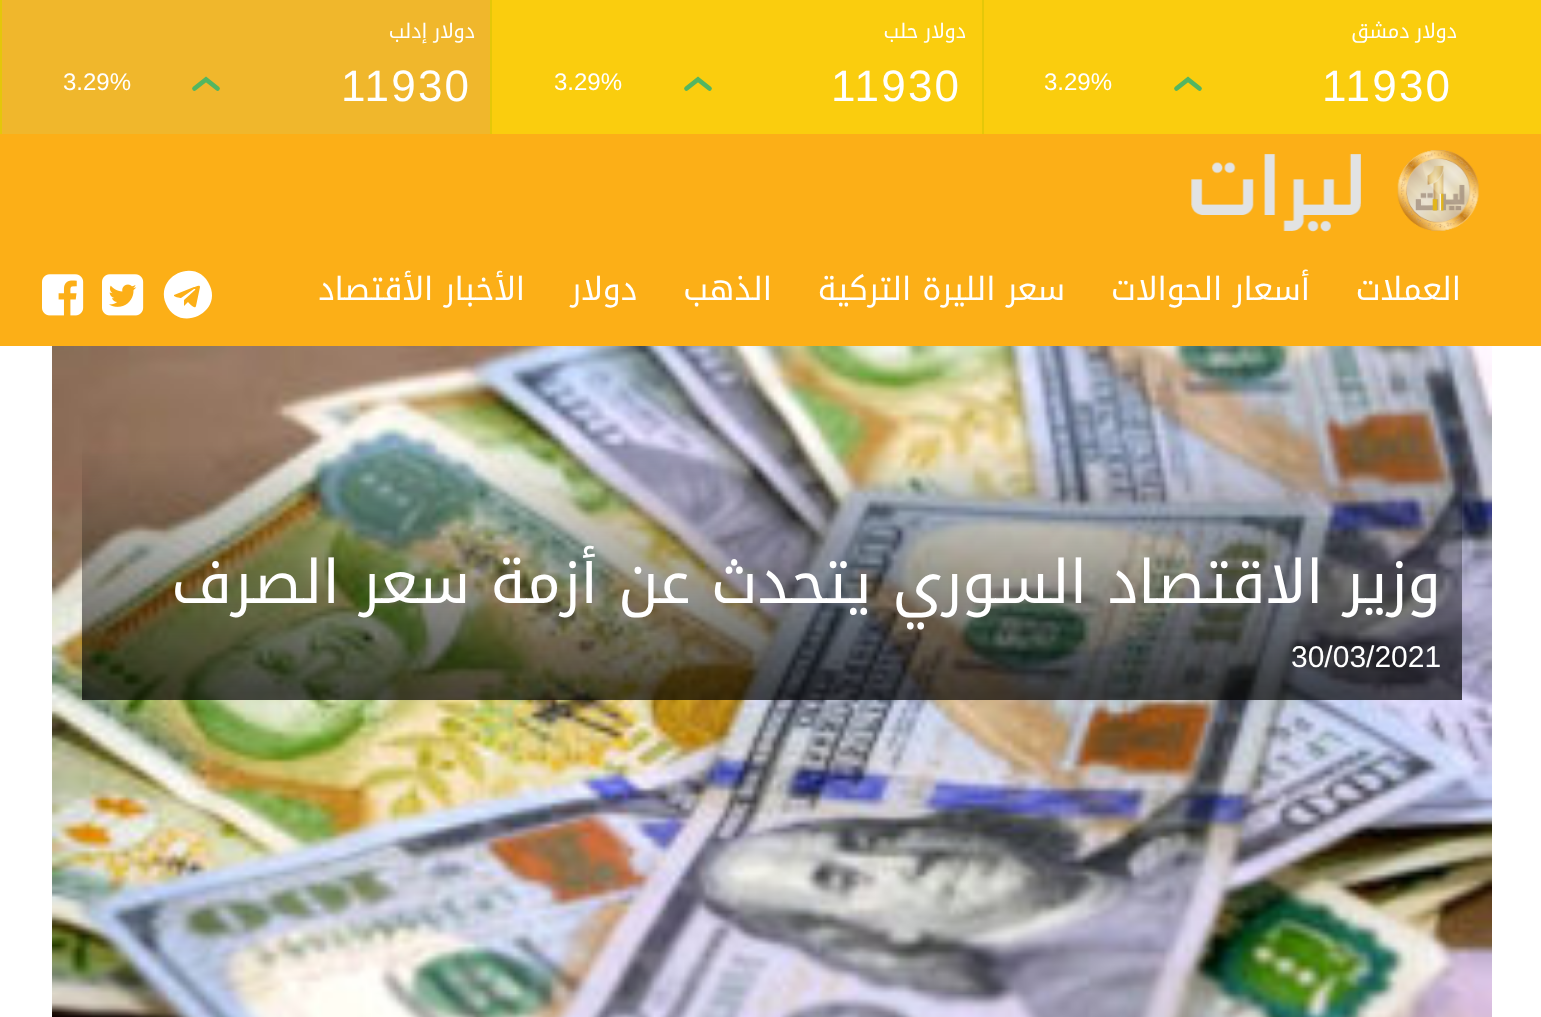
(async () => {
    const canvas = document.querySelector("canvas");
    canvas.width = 1541;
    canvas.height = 1017;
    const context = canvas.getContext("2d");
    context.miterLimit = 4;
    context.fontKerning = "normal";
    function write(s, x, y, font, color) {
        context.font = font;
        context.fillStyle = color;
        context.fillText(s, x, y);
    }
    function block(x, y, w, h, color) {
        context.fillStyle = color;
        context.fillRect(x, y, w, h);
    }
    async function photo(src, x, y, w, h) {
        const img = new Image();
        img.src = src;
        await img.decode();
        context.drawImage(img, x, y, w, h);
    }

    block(0, 0, 1541, 1017, "rgb(255, 255, 255)");
    block(492, 0, 1049, 134, "rgb(250, 205, 14)");
    block(982, 0, 2, 136, "rgb(228, 199, 9)");
    context.letterSpacing = "0.5px";
    context.wordSpacing = "-1px";
    context.direction = "rtl";
    write("دولار دمشق", 1457, 38, "20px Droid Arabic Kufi", "rgb(255, 255, 255)");
    context.letterSpacing = "2.25px";
    context.wordSpacing = "0px";
    context.direction = "ltr";
    write("11930", 1322, 101, "44px Liberation Sans", "rgb(255, 255, 255)");
    context.beginPath();
    context.moveTo(1176.5, 88.5);
    context.lineTo(1188, 79.5);
    context.lineTo(1199.5, 88.5);
    context.strokeStyle = "rgb(83, 182, 97)";
    context.lineWidth = 4.7;
    context.lineCap = "round";
    context.stroke();
    context.letterSpacing = "0px";
    write("3.29%", 1044, 90, "24px Liberation Sans", "rgb(255, 255, 255)");
    block(490, 0, 2, 134, "rgb(228, 199, 9)");
    context.letterSpacing = "0.5px";
    context.wordSpacing = "-1px";
    context.direction = "rtl";
    write("دولار حلب", 966, 38, "20px Droid Arabic Kufi", "rgb(255, 255, 255)");
    context.letterSpacing = "2.25px";
    context.wordSpacing = "0px";
    context.direction = "ltr";
    write("11930", 831, 101, "44px Liberation Sans", "rgb(255, 255, 255)");
    context.beginPath();
    context.moveTo(686.5, 88.5);
    context.lineTo(698, 79.5);
    context.lineTo(709.5, 88.5);
    context.stroke();
    context.letterSpacing = "0px";
    write("3.29%", 554, 90, "24px Liberation Sans", "rgb(255, 255, 255)");
    block(2, 0, 488, 134, "rgb(240, 183, 44)");
    block(0, 0, 2, 134, "rgb(228, 199, 9)");
    context.letterSpacing = "0.5px";
    context.wordSpacing = "-1px";
    context.direction = "rtl";
    write("دولار إدلب", 475, 38, "20px Droid Arabic Kufi", "rgb(255, 255, 255)");
    context.letterSpacing = "2.25px";
    context.wordSpacing = "0px";
    context.direction = "ltr";
    write("11930", 341, 101, "44px Liberation Sans", "rgb(255, 255, 255)");
    context.beginPath();
    context.moveTo(194.5, 88.5);
    context.lineTo(206, 79.5);
    context.lineTo(217.5, 88.5);
    context.stroke();
    context.letterSpacing = "0px";
    write("3.29%", 63, 90, "24px Liberation Sans", "rgb(255, 255, 255)");
    block(0, 134, 1541, 212, "rgb(252, 175, 23)");
    await photo("media/1.png", 1191, 150, 289, 82);
    context.direction = "rtl";
    write("العملات", 1461, 300, "32px Droid Arabic Kufi", "rgb(255, 255, 255)");
    write("أسعار الحوالات", 1310, 300, "32px Droid Arabic Kufi", "rgb(255, 255, 255)");
    write("سعر الليرة التركية", 1065, 300, "32px Droid Arabic Kufi", "rgb(255, 255, 255)");
    write("الذهب", 772, 300, "32px Droid Arabic Kufi", "rgb(255, 255, 255)");
    write("دولار", 637, 300, "32px Droid Arabic Kufi", "rgb(255, 255, 255)");
    write("الأخبار الأقتصاد", 525, 300, "32px Droid Arabic Kufi", "rgb(255, 255, 255)");
    context.beginPath();
    context.moveTo(196, 306);
    context.lineTo(200, 287);
    context.bezierCurveTo(200, 284, 195, 287, 194, 287);
    context.lineTo(174, 295);
    context.bezierCurveTo(173, 297, 180, 298, 181, 298);
    context.lineTo(194, 289);
    context.bezierCurveTo(195, 289, 196, 289, 195, 290);
    context.lineTo(184, 300);
    context.lineTo(184, 306);
    context.lineTo(188, 302);
    context.bezierCurveTo(189, 303, 195, 310, 196, 306);
    context.closePath();
    context.moveTo(210, 286);
    context.bezierCurveTo(222, 314, 178, 333, 166, 304);
    context.bezierCurveTo(154, 275, 198, 256, 210, 286);
    context.closePath();
    context.fill();
    await photo("media/2.png", 102, 274, 42, 42);
    await photo("media/3.png", 42, 274, 42, 42);
    await photo("media/4.png", 52, 346, 1440, 671);
    write("وزير الاقتصاد السوري يتحدث عن أزمة سعر الصرف", 1441, 603, "60px Droid Arabic Kufi", "rgb(255, 255, 255)");
    context.direction = "ltr";
    write("30/03/2021", 1291, 667, "30px Liberation Sans", "rgb(255, 255, 255)");
})();
